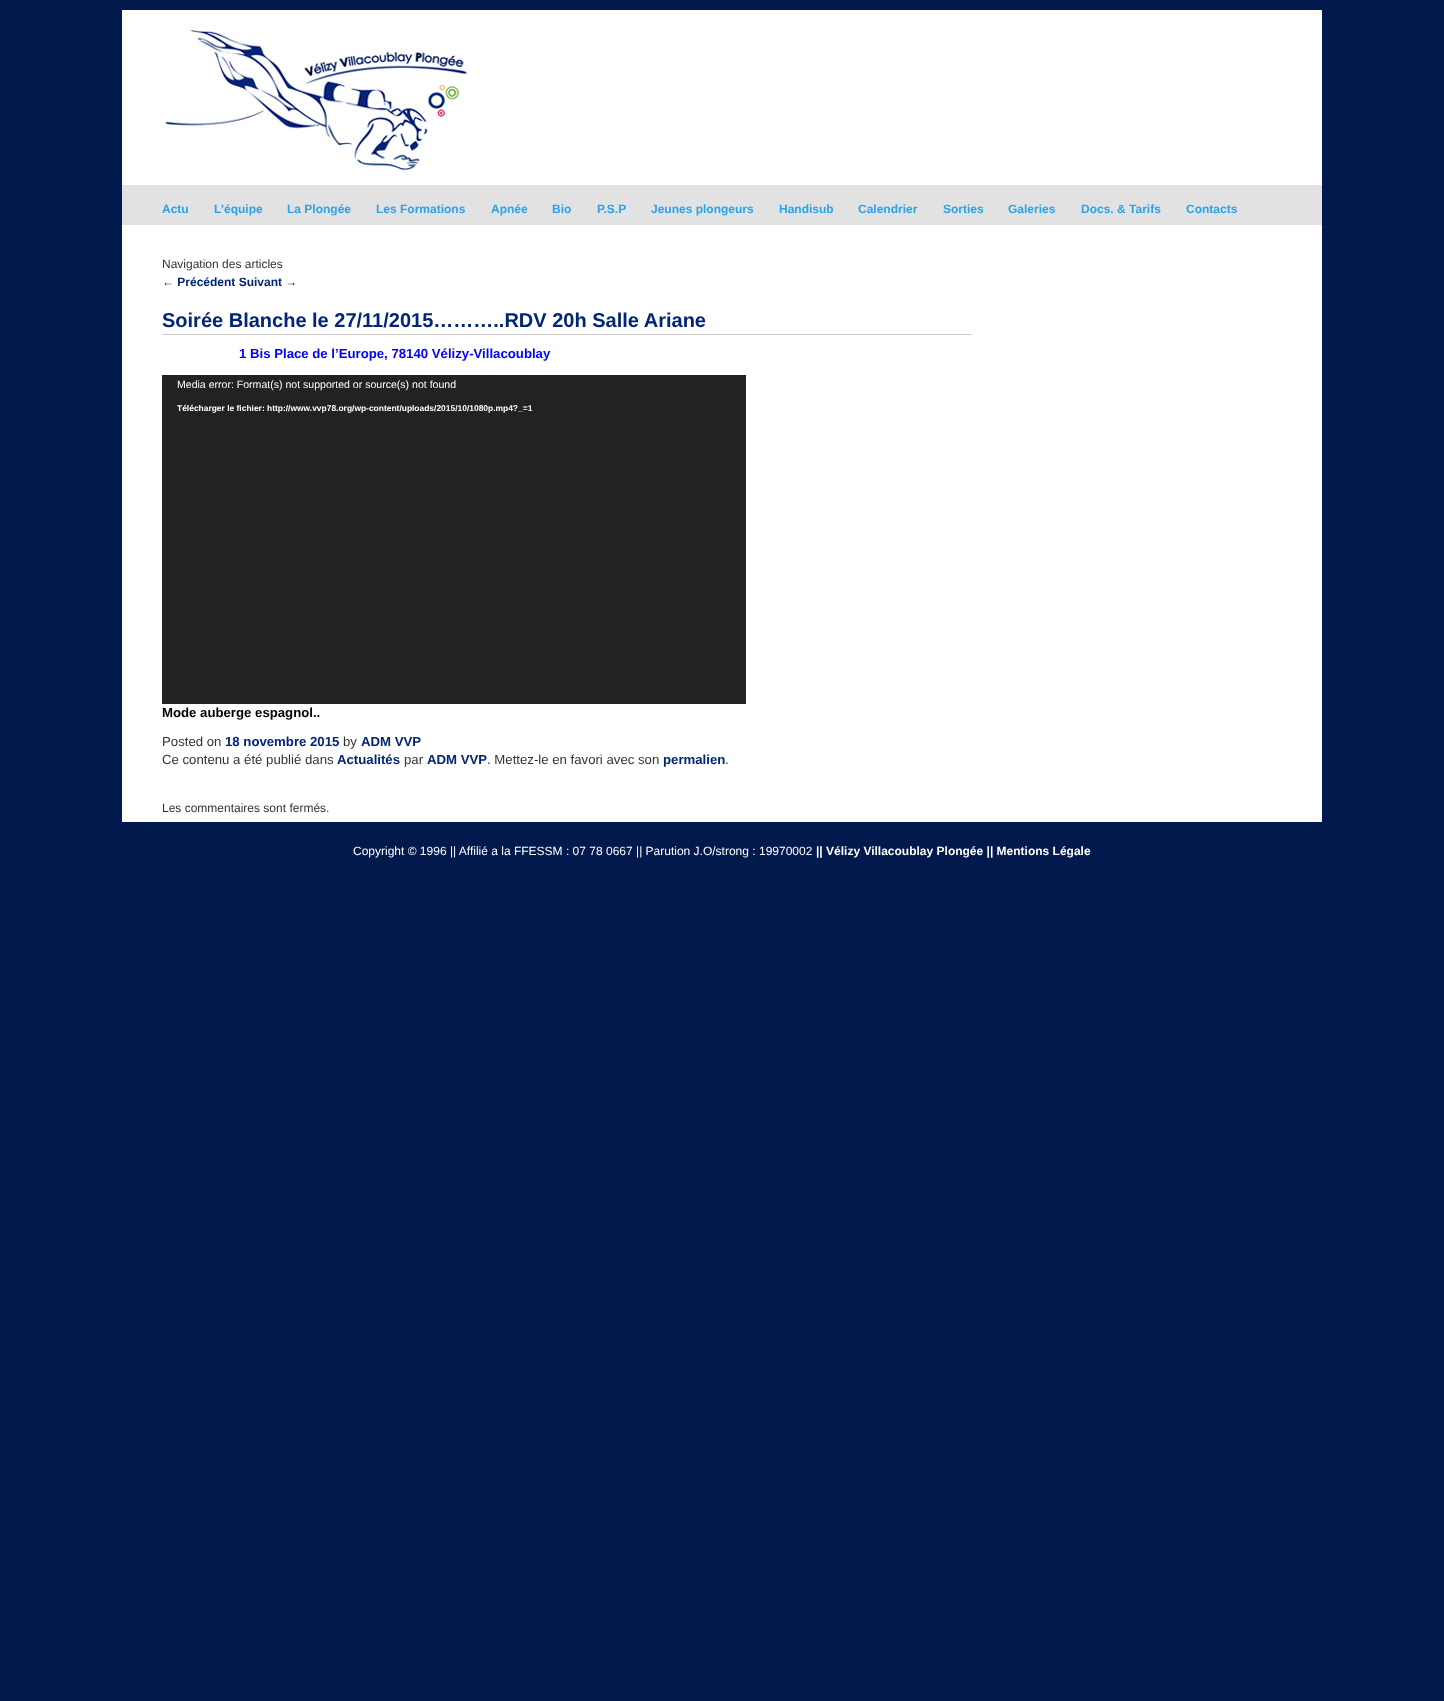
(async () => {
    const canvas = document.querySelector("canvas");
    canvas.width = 1444;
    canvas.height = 1701;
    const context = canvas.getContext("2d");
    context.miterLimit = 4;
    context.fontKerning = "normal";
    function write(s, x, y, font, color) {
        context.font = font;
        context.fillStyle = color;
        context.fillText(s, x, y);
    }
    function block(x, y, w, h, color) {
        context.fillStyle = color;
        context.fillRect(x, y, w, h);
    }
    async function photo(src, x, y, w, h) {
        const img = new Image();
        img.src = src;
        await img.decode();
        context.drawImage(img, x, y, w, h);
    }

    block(0, 0, 1444, 1701, "rgb(2, 25, 78)");
    block(122, 10, 1200, 175, "rgb(255, 255, 255)");
    await photo("media/1.png", 165, 30, 302, 141);
    block(122, 185, 1200, 40, "rgb(226, 226, 226)");
    write("Actu", 162, 213, "bold 12px Liberation Sans", "rgb(42, 163, 232)");
    write("L’équipe", 214, 213, "bold 12px Liberation Sans", "rgb(42, 163, 232)");
    write("La Plongée", 287, 213, "bold 12px Liberation Sans", "rgb(42, 163, 232)");
    write("Les Formations", 376, 213, "bold 12px Liberation Sans", "rgb(42, 163, 232)");
    write("Apnée", 491, 213, "bold 12px Liberation Sans", "rgb(42, 163, 232)");
    write("Bio", 552, 213, "bold 12px Liberation Sans", "rgb(42, 163, 232)");
    write("P.S.P", 597, 213, "bold 12px Liberation Sans", "rgb(42, 163, 232)");
    write("Jeunes plongeurs", 651, 213, "bold 12px Liberation Sans", "rgb(42, 163, 232)");
    write("Handisub", 779, 213, "bold 12px Liberation Sans", "rgb(42, 163, 232)");
    write("Calendrier", 858, 213, "bold 12px Liberation Sans", "rgb(42, 163, 232)");
    write("Sorties", 943, 213, "bold 12px Liberation Sans", "rgb(42, 163, 232)");
    write("Galeries", 1008, 213, "bold 12px Liberation Sans", "rgb(42, 163, 232)");
    write("Docs. & Tarifs", 1081, 213, "bold 12px Liberation Sans", "rgb(42, 163, 232)");
    write("Contacts", 1186, 213, "bold 12px Liberation Sans", "rgb(42, 163, 232)");
    block(122, 225, 1200, 597, "rgb(255, 255, 255)");
    write("Navigation des articles", 162, 268, "12px Liberation Sans", "rgb(51, 51, 51)");
    write("← Précédent Suivant →", 162, 286, "bold 12px Liberation Sans", "rgb(2, 37, 118)");
    block(162, 334, 810, 1, "rgb(204, 204, 204)");
    write("Soirée Blanche le 27/11/2015………..RDV 20h Salle Ariane", 162, 327, "bold 20px Liberation Sans", "rgb(2, 37, 118)");
    write("1 Bis Place de l’Europe, 78140 Vélizy-Villacoublay", 239, 358, "bold 13.2px Liberation Sans", "rgb(0, 0, 255)");
    block(162, 375, 584, 329, "rgb(34, 34, 34)");
    write("Media error: Format(s) not supported or source(s) not found", 177, 388, "10.55px Liberation Sans", "rgb(255, 255, 255)");
    write("Télécharger le fichier: http://www.vvp78.org/wp-content/uploads/2015/10/1080p.mp4?_=1", 177, 411, "bold 8.45px Liberation Sans", "rgb(255, 255, 255)");
    write("Mode auberge espagnol..", 162, 717, "bold 13.2px Liberation Sans", "rgb(0, 0, 0)");
    write("Posted on", 162, 746, "13.2px Liberation Sans", "rgb(51, 51, 51)");
    write("18 novembre 2015", 225, 746, "bold 13.2px Liberation Sans", "rgb(2, 37, 118)");
    write("by", 343, 746, "13.2px Liberation Sans", "rgb(51, 51, 51)");
    write("ADM VVP", 361, 746, "bold 13.2px Liberation Sans", "rgb(2, 37, 118)");
    write("Ce contenu a été publié dans", 162, 764, "13.2px Liberation Sans", "rgb(51, 51, 51)");
    write("Actualités", 337, 764, "bold 13.2px Liberation Sans", "rgb(2, 37, 118)");
    write("par", 404, 764, "13.2px Liberation Sans", "rgb(51, 51, 51)");
    write("ADM VVP", 427, 764, "bold 13.2px Liberation Sans", "rgb(2, 37, 118)");
    write(". Mettez-le en favori avec son", 487, 764, "13.2px Liberation Sans", "rgb(51, 51, 51)");
    write("permalien", 663, 764, "bold 13.2px Liberation Sans", "rgb(2, 37, 118)");
    write(".", 725, 764, "13.2px Liberation Sans", "rgb(51, 51, 51)");
    write("Les commentaires sont fermés.", 162, 812, "12px Liberation Sans", "rgb(51, 51, 51)");
    write("Copyright © 1996 || Affilié a la FFESSM : 07 78 0667 || Parution J.O/strong : 19970002", 353, 855, "12px Liberation Sans", "rgb(255, 255, 255)");
    write("|| Vélizy Villacoublay Plongée || Mentions Légale", 816, 855, "bold 12px Liberation Sans", "rgb(255, 255, 255)");
})();
